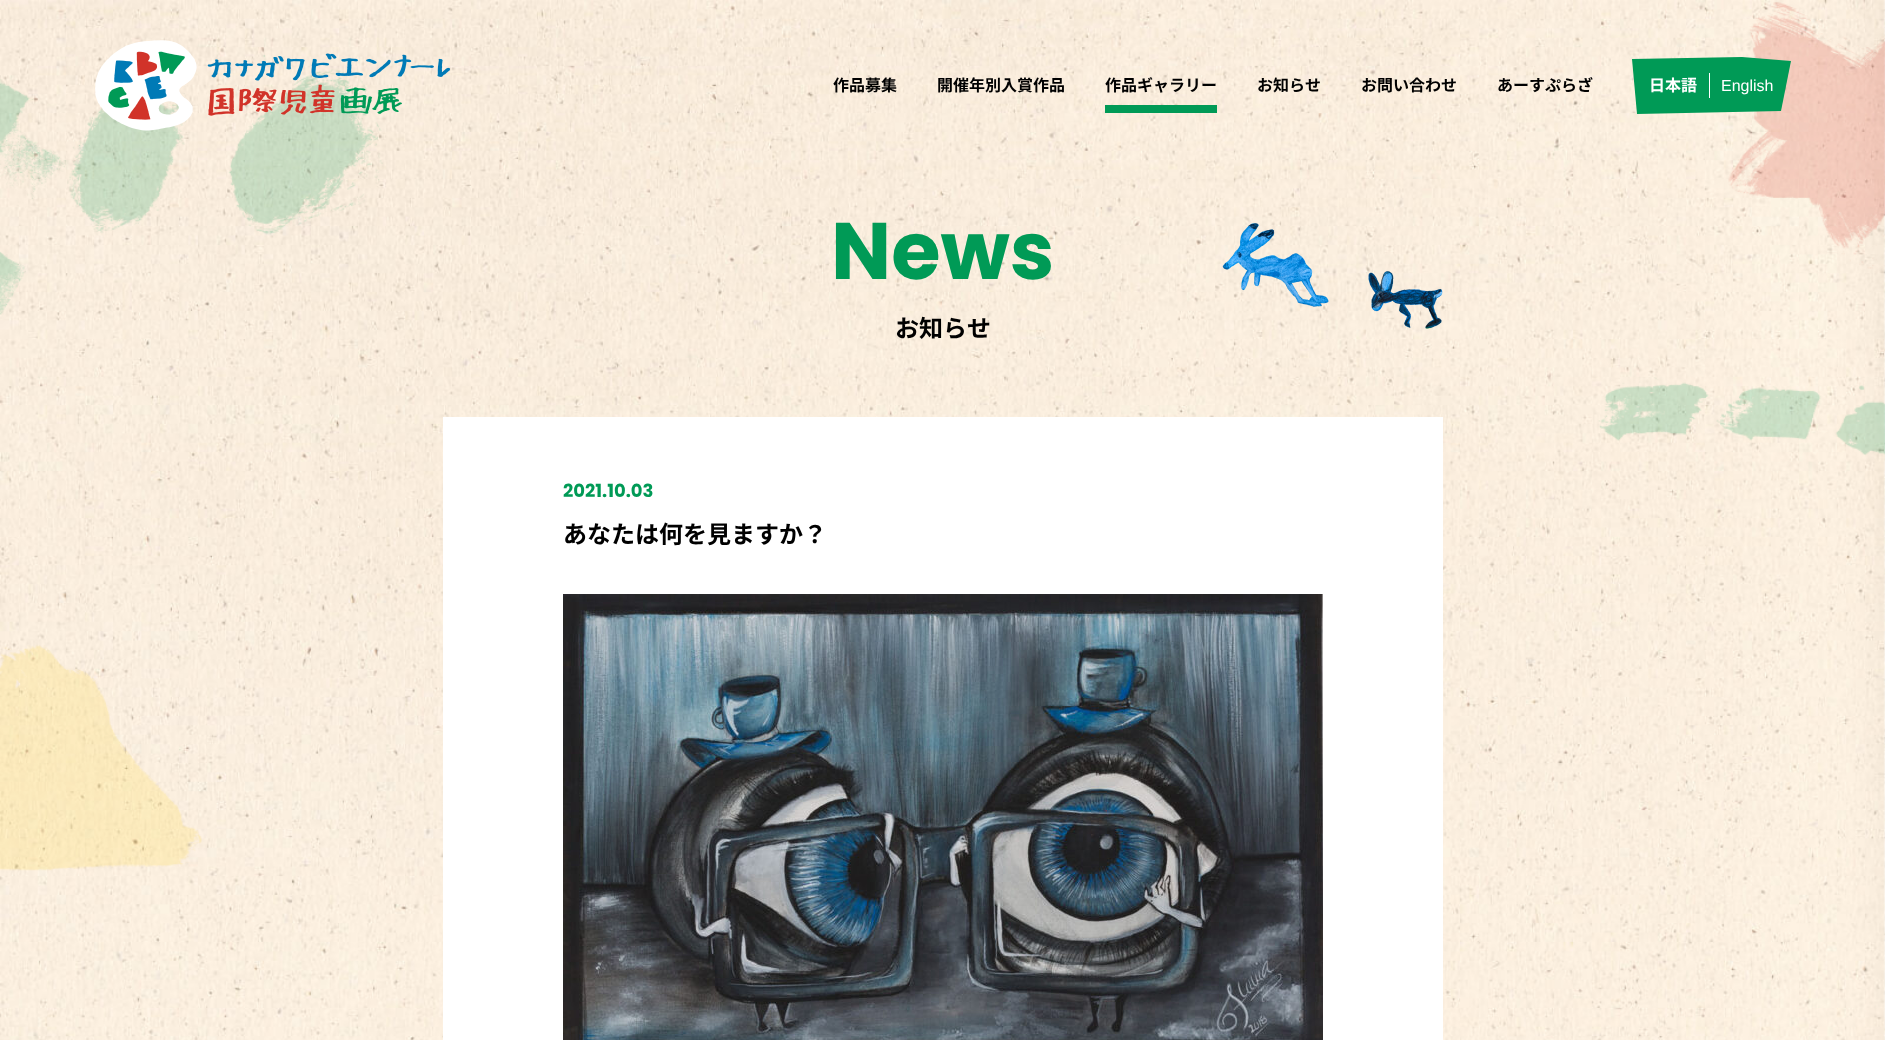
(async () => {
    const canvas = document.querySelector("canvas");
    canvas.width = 1885;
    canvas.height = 1040;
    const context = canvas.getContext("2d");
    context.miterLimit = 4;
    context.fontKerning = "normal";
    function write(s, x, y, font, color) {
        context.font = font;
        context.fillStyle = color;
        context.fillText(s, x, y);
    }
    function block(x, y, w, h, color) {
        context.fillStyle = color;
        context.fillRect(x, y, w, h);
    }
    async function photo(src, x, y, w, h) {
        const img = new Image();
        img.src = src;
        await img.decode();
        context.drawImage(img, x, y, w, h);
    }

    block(0, 0, 1885, 1040, "rgb(255, 255, 255)");
    await photo("media/1.png", 0, 0, 1885, 1040);
    await photo("media/2.png", 0, 2, 1885, 869);
    await photo("media/3.png", 95, 40, 355, 91);
    write("作品募集", 833, 91, "bold 16px Noto Sans JP", "rgb(0, 0, 0)");
    write("開催年別入賞作品", 937, 91, "bold 16px Noto Sans JP", "rgb(0, 0, 0)");
    write("作品ギャラリー", 1105, 91, "bold 16px Noto Sans JP", "rgb(0, 0, 0)");
    block(1105, 105, 112, 8, "rgb(0, 154, 86)");
    write("お知らせ", 1257, 91, "bold 16px Noto Sans JP", "rgb(0, 0, 0)");
    write("お問い合わせ", 1361, 91, "bold 16px Noto Sans JP", "rgb(0, 0, 0)");
    write("あーすぷらざ", 1497, 91, "bold 16px Noto Sans JP", "rgb(0, 0, 0)");
    context.fillStyle = "rgb(0, 154, 86)";
    context.beginPath();
    context.moveTo(1637, 114);
    context.lineTo(1632, 59);
    context.lineTo(1742, 57);
    context.lineTo(1791, 61);
    context.lineTo(1781, 111);
    context.closePath();
    context.fill();
    write("日本語", 1649, 91, "bold 16px Noto Sans JP", "rgb(255, 255, 255)");
    block(1709, 73, 1, 25, "rgb(255, 255, 255)");
    write("English", 1721, 91, "16px Liberation Sans", "rgb(255, 255, 255)");
    write("News", 831, 279, "bold 80px Poppins", "rgb(0, 154, 86)");
    write("お知らせ", 895, 337, "bold 24px Noto Sans JP", "rgb(0, 0, 0)");
    block(443, 417, 1000, 623, "rgb(255, 255, 255)");
    await photo("media/4.png", 1222, 223, 221, 106);
    write("2021.10.03", 563, 497, "bold 18px Poppins", "rgb(0, 154, 86)");
    write("あなたは何を見ますか？", 563, 543, "bold 24px Noto Sans JP", "rgb(0, 0, 0)");
    await photo("media/5.png", 563, 594, 760, 446);
})();
